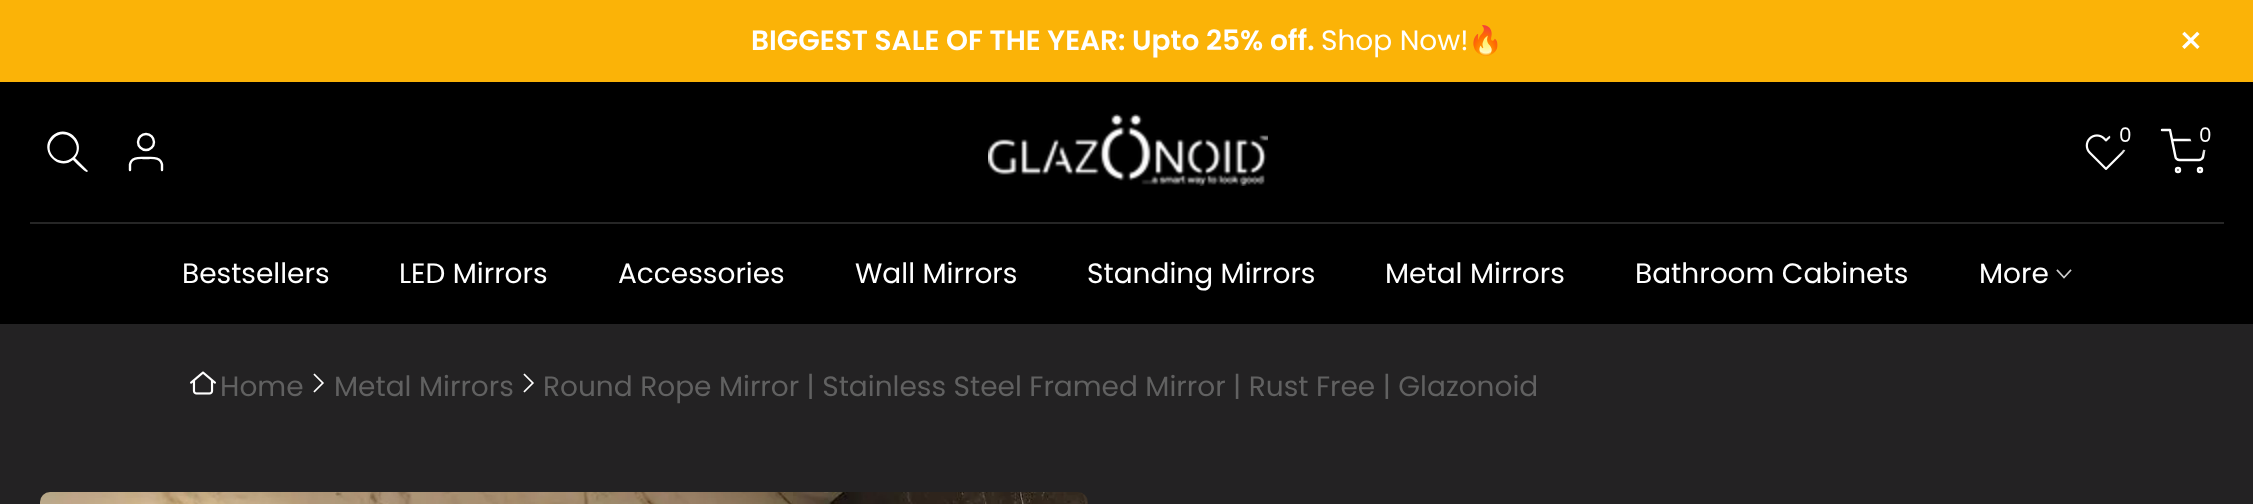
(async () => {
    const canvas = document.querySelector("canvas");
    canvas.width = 2253;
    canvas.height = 504;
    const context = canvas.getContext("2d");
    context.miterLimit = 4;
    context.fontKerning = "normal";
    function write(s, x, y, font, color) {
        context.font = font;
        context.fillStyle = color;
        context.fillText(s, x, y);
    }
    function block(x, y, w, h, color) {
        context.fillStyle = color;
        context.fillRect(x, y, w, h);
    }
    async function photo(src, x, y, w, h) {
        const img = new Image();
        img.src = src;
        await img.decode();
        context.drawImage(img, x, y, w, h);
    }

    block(0, 0, 2253, 504, "rgb(35, 34, 35)");
    block(0, 0, 2253, 82, "rgb(251, 179, 7)");
    write("BIGGEST SALE OF THE YEAR: Upto 25% off.", 751, 50, "600 28px Poppins", "rgb(255, 255, 255)");
    write("Shop Now!", 1321, 50, "28px Poppins", "rgb(255, 255, 255)");
    write("🔥", 1468, 50, "28px Noto Color Emoji", "rgb(255, 255, 255)");
    write("×", 2178, 55, "40px Poppins", "rgb(255, 255, 255)");
    block(0, 82, 2253, 242, "rgb(0, 0, 0)");
    block(30, 222, 2194, 2, "rgb(38, 38, 38)");
    context.fillStyle = "rgb(255, 255, 255)";
    context.beginPath();
    context.moveTo(73, 157);
    context.bezierCurveTo(60, 169, 41, 151, 54, 138);
    context.bezierCurveTo(66, 126, 85, 145, 73, 157);
    context.closePath();
    context.moveTo(73, 160);
    context.bezierCurveTo(58, 172, 38, 150, 52, 136);
    context.bezierCurveTo(67, 122, 88, 143, 75, 158);
    context.lineTo(88, 171);
    context.lineTo(87, 172);
    context.bezierCurveTo(86, 173, 75, 162, 73, 160);
    context.closePath();
    context.fill("evenodd");
    context.beginPath();
    context.arc(146, 142, 8, 0, Math.PI * 2);
    context.strokeStyle = "rgb(255, 255, 255)";
    context.lineWidth = 2.4;
    context.stroke();
    context.beginPath();
    context.moveTo(162, 170);
    context.lineTo(162, 164.5);
    context.bezierCurveTo(160.5, 156.5, 152, 158, 146, 158);
    context.bezierCurveTo(140, 158, 131.5, 156.5, 130, 164.5);
    context.lineTo(130, 170);
    context.lineCap = "round";
    context.lineJoin = "round";
    context.stroke();
    await photo("media/1.png", 988, 114, 280, 72);
    await photo("media/2.png", 2085, 134, 41, 36);
    context.fillStyle = "rgba(0, 0, 0, 0.3)";
    context.filter = "blur(3px)";
    context.beginPath();
    context.roundRect(2112, 122, 30, 30, 15);
    context.fill();
    context.filter = "none";
    context.fillStyle = "rgb(0, 0, 0)";
    context.beginPath();
    context.arc(2125, 135, 15, 0, Math.PI * 2);
    context.fill();
    write("0", 2119, 142, "20px Poppins", "rgb(255, 255, 255)");
    context.beginPath();
    context.moveTo(2162, 130);
    context.lineTo(2170, 130);
    context.lineTo(2175.5, 157);
    context.bezierCurveTo(2175.5, 158.5, 2177.5, 160, 2179.5, 160);
    context.lineTo(2199, 160);
    context.bezierCurveTo(2200.5, 160, 2202.5, 158.5, 2203, 157);
    context.lineTo(2206, 140);
    context.lineTo(2172, 140);
    context.stroke();
    context.fillStyle = "rgba(0, 0, 0, 0.3)";
    context.filter = "blur(3px)";
    context.beginPath();
    context.roundRect(2192, 122, 30, 30, 15);
    context.fill();
    context.filter = "none";
    context.fillStyle = "rgb(0, 0, 0)";
    context.beginPath();
    context.arc(2205, 135, 15, 0, Math.PI * 2);
    context.fill();
    write("0", 2199, 142, "20px Poppins", "rgb(255, 255, 255)");
    context.beginPath();
    context.arc(2178, 170, 2, 0, Math.PI * 2);
    context.stroke();
    context.beginPath();
    context.arc(2200, 170, 2, 0, Math.PI * 2);
    context.stroke();
    write("Bestsellers", 182, 283, "28px Poppins", "rgb(255, 255, 255)");
    write("LED Mirrors", 399, 283, "28px Poppins", "rgb(255, 255, 255)");
    write("Accessories", 618, 283, "28px Poppins", "rgb(255, 255, 255)");
    write("Wall Mirrors", 855, 283, "28px Poppins", "rgb(255, 255, 255)");
    write("Standing Mirrors", 1087, 283, "28px Poppins", "rgb(255, 255, 255)");
    write("Metal Mirrors", 1385, 283, "28px Poppins", "rgb(255, 255, 255)");
    write("Bathroom Cabinets", 1635, 283, "28px Poppins", "rgb(255, 255, 255)");
    write("More", 1979, 283, "28px Poppins", "rgb(255, 255, 255)");
    context.beginPath();
    context.moveTo(2070.5, 270.5);
    context.lineTo(2064, 277.5);
    context.lineTo(2057.5, 270.5);
    context.strokeStyle = "rgb(204, 204, 204)";
    context.lineWidth = 1.7;
    context.lineCap = "square";
    context.lineJoin = "miter";
    context.stroke();
    await photo("media/3.png", 190, 371, 26, 24);
    write("Home", 220, 396, "28px Poppins", "rgb(97, 97, 97)");
    await photo("media/4.png", 313, 373, 11, 20);
    write("Metal Mirrors", 334, 396, "28px Poppins", "rgb(97, 97, 97)");
    await photo("media/4.png", 523, 373, 11, 20);
    write("Round Rope Mirror | Stainless Steel Framed Mirror | Rust Free | Glazonoid", 543, 396, "28px Poppins", "rgb(97, 97, 97)");
    await photo("media/5.png", 40, 492, 1048, 12);
})();
